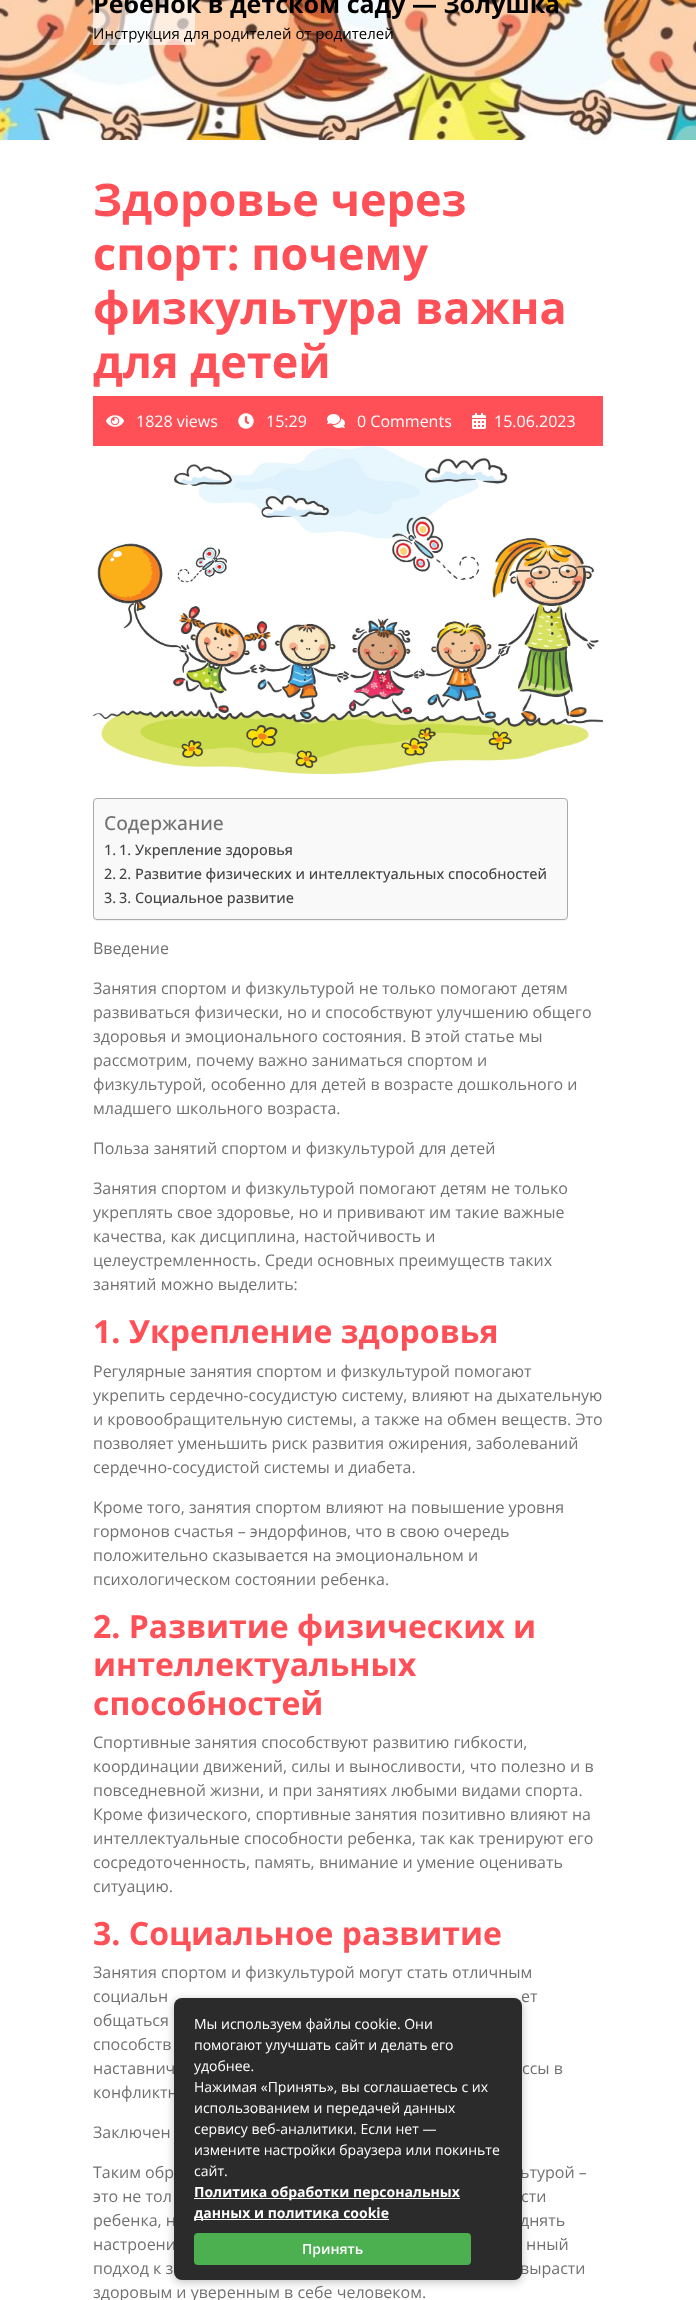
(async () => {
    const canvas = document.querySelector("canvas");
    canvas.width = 696;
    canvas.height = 2300;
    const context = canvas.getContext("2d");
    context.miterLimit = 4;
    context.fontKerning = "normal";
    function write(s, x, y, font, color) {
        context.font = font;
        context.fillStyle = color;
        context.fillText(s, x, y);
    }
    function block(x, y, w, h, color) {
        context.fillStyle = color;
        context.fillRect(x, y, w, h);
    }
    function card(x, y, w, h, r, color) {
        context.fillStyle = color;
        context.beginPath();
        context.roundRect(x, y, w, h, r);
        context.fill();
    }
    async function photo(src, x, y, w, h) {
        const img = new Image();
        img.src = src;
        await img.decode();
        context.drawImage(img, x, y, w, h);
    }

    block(0, 0, 696, 2300, "rgb(255, 255, 255)");
    await photo("media/1.png", 0, 0, 696, 140);
    block(93, 0, 102, 45, "rgba(255, 255, 255, 0.63)");
    write("Ребёнок в детском саду — Золушка", 93, 13, "bold 25px Open Sans", "rgb(0, 0, 0)");
    write("Инструкция для родителей от родителей", 93, 39, "15px Open Sans", "rgb(0, 0, 0)");
    write("Здоровье через", 93, 216, "bold 45px Open Sans", "rgb(255, 79, 87)");
    write("спорт: почему", 93, 270, "bold 45px Open Sans", "rgb(255, 79, 87)");
    write("физкультура важна", 93, 324, "bold 45px Open Sans", "rgb(255, 79, 87)");
    write("для детей", 93, 378, "bold 45px Open Sans", "rgb(255, 79, 87)");
    block(93, 396, 510, 50, "rgb(255, 79, 87)");
    await photo("media/2.png", 106, 415, 18, 12);
    write("1828 views", 136, 427, "16px Open Sans", "rgb(255, 255, 255)");
    await photo("media/3.png", 238, 413, 16, 16);
    write("15:29", 266, 427, "16px Open Sans", "rgb(255, 255, 255)");
    await photo("media/4.png", 327, 414, 18, 14);
    write("0 Comments", 357, 427, "16px Open Sans", "rgb(255, 255, 255)");
    await photo("media/5.png", 472, 413, 14, 16);
    write("15.06.2023", 494, 427, "16px Open Sans", "rgb(255, 255, 255)");
    await photo("media/6.png", 93, 446, 510, 328);
    context.fillStyle = "rgba(0, 0, 0, 0.05)";
    context.filter = "blur(0.5px)";
    context.beginPath();
    context.roundRect(93, 799, 475, 122, 4);
    context.fill();
    context.filter = "none";
    context.fillStyle = "rgb(249, 249, 249)";
    context.beginPath();
    context.roundRect(93.5, 798.5, 474, 121, 3.5);
    context.fill();
    context.strokeStyle = "rgb(170, 170, 170)";
    context.stroke();
    write("Содержание", 104, 830, "500 19.25px Open Sans", "rgb(113, 113, 113)");
    write("1.", 104, 855, "500 14.45px Open Sans", "rgb(68, 68, 68)");
    write("1. Укрепление здоровья", 119, 855, "500 14.45px Open Sans", "rgb(68, 68, 68)");
    write("2.", 104, 879, "500 14.45px Open Sans", "rgb(68, 68, 68)");
    write("2. Развитие физических и интеллектуальных способностей", 119, 879, "500 14.45px Open Sans", "rgb(68, 68, 68)");
    write("3.", 104, 903, "500 14.45px Open Sans", "rgb(68, 68, 68)");
    write("3. Социальное развитие", 119, 903, "500 14.45px Open Sans", "rgb(68, 68, 68)");
    write("Введение", 93, 954, "16px Open Sans", "rgb(113, 113, 113)");
    write("Занятия спортом и физкультурой не только помогают детям", 93, 994, "16px Open Sans", "rgb(113, 113, 113)");
    write("развиваться физически, но и способствуют улучшению общего", 93, 1018, "16px Open Sans", "rgb(113, 113, 113)");
    write("здоровья и эмоционального состояния. В этой статье мы", 93, 1042, "16px Open Sans", "rgb(113, 113, 113)");
    write("рассмотрим, почему важно заниматься спортом и", 93, 1066, "16px Open Sans", "rgb(113, 113, 113)");
    write("физкультурой, особенно для детей в возрасте дошкольного и", 93, 1090, "16px Open Sans", "rgb(113, 113, 113)");
    write("младшего школьного возраста.", 93, 1114, "16px Open Sans", "rgb(113, 113, 113)");
    write("Польза занятий спортом и физкультурой для детей", 93, 1154, "16px Open Sans", "rgb(113, 113, 113)");
    write("Занятия спортом и физкультурой помогают детям не только", 93, 1194, "16px Open Sans", "rgb(113, 113, 113)");
    write("укреплять свое здоровье, но и прививают им такие важные", 93, 1218, "16px Open Sans", "rgb(113, 113, 113)");
    write("качества, как дисциплина, настойчивость и", 93, 1242, "16px Open Sans", "rgb(113, 113, 113)");
    write("целеустремленность. Среди основных преимуществ таких", 93, 1266, "16px Open Sans", "rgb(113, 113, 113)");
    write("занятий можно выделить:", 93, 1290, "16px Open Sans", "rgb(113, 113, 113)");
    write("1. Укрепление здоровья", 93, 1343, "bold 32px Open Sans", "rgb(255, 79, 87)");
    write("Регулярные занятия спортом и физкультурой помогают", 93, 1377, "16px Open Sans", "rgb(113, 113, 113)");
    write("укрепить сердечно-сосудистую систему, влияют на дыхательную", 93, 1401, "16px Open Sans", "rgb(113, 113, 113)");
    write("и кровообращительную системы, а также на обмен веществ. Это", 93, 1425, "16px Open Sans", "rgb(113, 113, 113)");
    write("позволяет уменьшить риск развития ожирения, заболеваний", 93, 1449, "16px Open Sans", "rgb(113, 113, 113)");
    write("сердечно-сосудистой системы и диабета.", 93, 1473, "16px Open Sans", "rgb(113, 113, 113)");
    write("Кроме того, занятия спортом влияют на повышение уровня", 93, 1513, "16px Open Sans", "rgb(113, 113, 113)");
    write("гормонов счастья – эндорфинов, что в свою очередь", 93, 1537, "16px Open Sans", "rgb(113, 113, 113)");
    write("положительно сказывается на эмоциональном и", 93, 1561, "16px Open Sans", "rgb(113, 113, 113)");
    write("психологическом состоянии ребенка.", 93, 1585, "16px Open Sans", "rgb(113, 113, 113)");
    write("2. Развитие физических и", 93, 1638, "bold 32px Open Sans", "rgb(255, 79, 87)");
    write("интеллектуальных", 93, 1676, "bold 32px Open Sans", "rgb(255, 79, 87)");
    write("способностей", 93, 1715, "bold 32px Open Sans", "rgb(255, 79, 87)");
    write("Спортивные занятия способствуют развитию гибкости,", 93, 1748, "16px Open Sans", "rgb(113, 113, 113)");
    write("координации движений, силы и выносливости, что полезно и в", 93, 1772, "16px Open Sans", "rgb(113, 113, 113)");
    write("повседневной жизни, и при занятиях любыми видами спорта.", 93, 1796, "16px Open Sans", "rgb(113, 113, 113)");
    write("Кроме физического, спортивные занятия позитивно влияют на", 93, 1820, "16px Open Sans", "rgb(113, 113, 113)");
    write("интеллектуальные способности ребенка, так как тренируют его", 93, 1844, "16px Open Sans", "rgb(113, 113, 113)");
    write("сосредоточенность, память, внимание и умение оценивать", 93, 1868, "16px Open Sans", "rgb(113, 113, 113)");
    write("ситуацию.", 93, 1892, "16px Open Sans", "rgb(113, 113, 113)");
    write("3. Социальное развитие", 93, 1945, "bold 32px Open Sans", "rgb(255, 79, 87)");
    write("Занятия спортом и физкультурой могут стать отличным", 93, 1978, "16px Open Sans", "rgb(113, 113, 113)");
    write("социальн", 93, 2002, "16px Open Sans", "rgb(113, 113, 113)");
    write("ет", 521, 2002, "16px Open Sans", "rgb(113, 113, 113)");
    write("общаться", 93, 2026, "16px Open Sans", "rgb(113, 113, 113)");
    write("способств", 93, 2050, "16px Open Sans", "rgb(113, 113, 113)");
    write("наставнич", 93, 2074, "16px Open Sans", "rgb(113, 113, 113)");
    write("ссы в", 522, 2074, "16px Open Sans", "rgb(113, 113, 113)");
    write("конфликтн", 93, 2098, "16px Open Sans", "rgb(113, 113, 113)");
    write("Заключен", 93, 2138, "16px Open Sans", "rgb(113, 113, 113)");
    write("Таким обр", 93, 2178, "16px Open Sans", "rgb(113, 113, 113)");
    write("ьтурой –", 520, 2178, "16px Open Sans", "rgb(113, 113, 113)");
    write("это не тол", 93, 2202, "16px Open Sans", "rgb(113, 113, 113)");
    write("сти", 521, 2202, "16px Open Sans", "rgb(113, 113, 113)");
    write("ребенка, н", 93, 2226, "16px Open Sans", "rgb(113, 113, 113)");
    write("днять", 520, 2226, "16px Open Sans", "rgb(113, 113, 113)");
    write("настроени", 93, 2250, "16px Open Sans", "rgb(113, 113, 113)");
    write("нный", 526, 2250, "16px Open Sans", "rgb(113, 113, 113)");
    write("подход к з", 93, 2274, "16px Open Sans", "rgb(113, 113, 113)");
    write("вырасти", 520, 2274, "16px Open Sans", "rgb(113, 113, 113)");
    write("здоровым и уверенным в себе человеком.", 93, 2298, "16px Open Sans", "rgb(113, 113, 113)");
    context.fillStyle = "rgba(0, 0, 0, 0.25)";
    context.filter = "blur(5px)";
    context.beginPath();
    context.roundRect(174, 2000, 348, 282, 8);
    context.fill();
    context.filter = "none";
    card(174, 1998, 348, 282, 8, "rgb(43, 43, 43)");
    write("Мы используем файлы cookie. Они", 194, 2029, "14px Open Sans", "rgb(255, 255, 255)");
    write("помогают улучшать сайт и делать его", 194, 2050, "14px Open Sans", "rgb(255, 255, 255)");
    write("удобнее.", 194, 2071, "14px Open Sans", "rgb(255, 255, 255)");
    write("Нажимая «Принять», вы соглашаетесь с их", 194, 2092, "14px Open Sans", "rgb(255, 255, 255)");
    write("использованием и передачей данных", 194, 2113, "14px Open Sans", "rgb(255, 255, 255)");
    write("сервису веб-аналитики. Если нет —", 194, 2134, "14px Open Sans", "rgb(255, 255, 255)");
    write("измените настройки браузера или покиньте", 194, 2155, "14px Open Sans", "rgb(255, 255, 255)");
    write("сайт.", 194, 2176, "14px Open Sans", "rgb(255, 255, 255)");
    block(194, 2198, 266, 1, "rgb(254, 254, 254)");
    write("Политика обработки персональных", 194, 2197, "bold 14px Open Sans", "rgb(255, 255, 255)");
    block(194, 2219, 195, 1, "rgb(254, 254, 254)");
    write("данных и политика cookie", 194, 2218, "bold 14px Open Sans", "rgb(255, 255, 255)");
    card(194, 2233, 277, 32, 4, "rgb(76, 175, 80)");
    write("Принять", 302, 2254, "600 14px Open Sans", "rgb(255, 255, 255)");
})();
